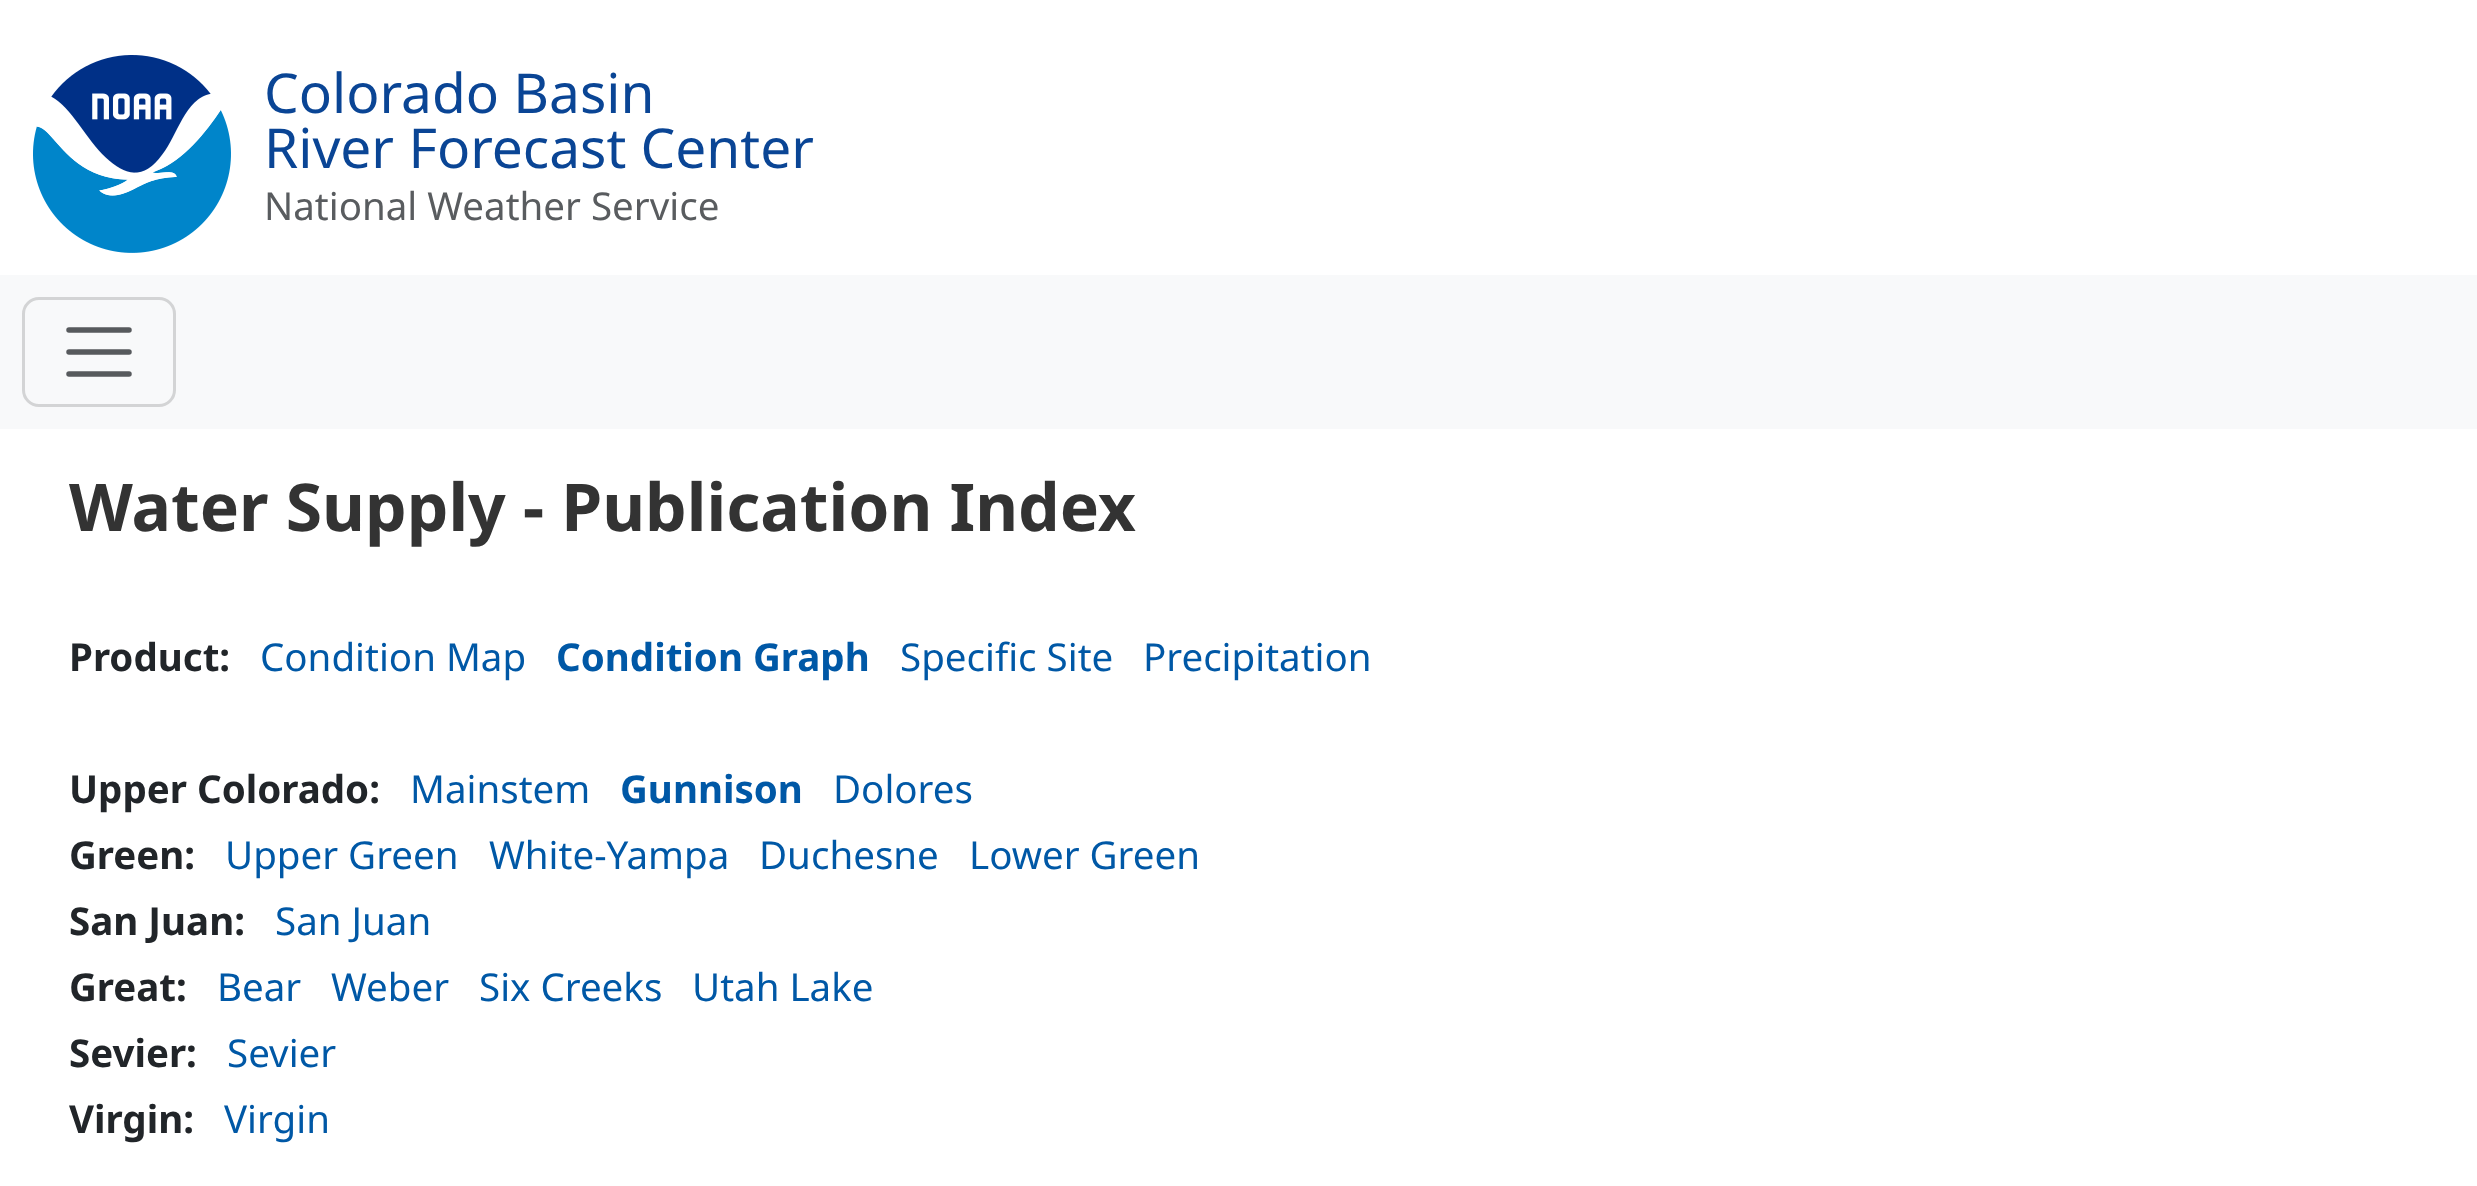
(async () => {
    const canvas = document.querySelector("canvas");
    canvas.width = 2477;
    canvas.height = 1186;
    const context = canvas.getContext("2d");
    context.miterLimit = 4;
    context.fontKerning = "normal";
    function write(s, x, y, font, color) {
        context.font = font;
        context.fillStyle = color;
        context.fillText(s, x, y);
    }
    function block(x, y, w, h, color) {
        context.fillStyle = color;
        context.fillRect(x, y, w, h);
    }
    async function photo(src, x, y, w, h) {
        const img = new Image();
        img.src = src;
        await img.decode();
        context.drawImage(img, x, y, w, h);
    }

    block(0, 0, 2477, 1186, "rgb(255, 255, 255)");
    await photo("media/1.png", 33, 55, 198, 198);
    write("Colorado Basin", 264, 113, "55px Noto Sans", "rgb(10, 69, 149)");
    write("River Forecast Center", 264, 168, "55px Noto Sans", "rgb(10, 69, 149)");
    write("National Weather Service", 264, 220, "38.5px Noto Sans", "rgb(89, 92, 95)");
    block(0, 275, 2477, 154, "rgb(248, 249, 250)");
    context.beginPath();
    context.roundRect(23.5, 298.5, 151, 107, 15.5);
    context.strokeStyle = "rgb(211, 212, 213)";
    context.lineWidth = 3;
    context.stroke();
    context.beginPath();
    context.moveTo(69, 330);
    context.lineTo(129, 330);
    context.moveTo(69, 352);
    context.lineTo(129, 352);
    context.moveTo(69, 374);
    context.lineTo(129, 374);
    context.strokeStyle = "rgb(87, 90, 93)";
    context.lineWidth = 5.5;
    context.lineCap = "round";
    context.stroke();
    write("Water Supply - Publication Index", 69, 531, "bold 66px Noto Sans", "rgb(51, 51, 51)");
    write("Product:", 69, 671, "bold 38.5px Noto Sans", "rgb(33, 37, 41)");
    write("Condition Map", 260, 671, "38.5px Noto Sans", "rgb(0, 88, 166)");
    write("Condition Graph", 556, 671, "bold 38.5px Noto Sans", "rgb(0, 88, 166)");
    write("Specific Site", 900, 671, "38.5px Noto Sans", "rgb(0, 88, 166)");
    write("Precipitation", 1143, 671, "38.5px Noto Sans", "rgb(0, 88, 166)");
    write("Upper Colorado:", 69, 803, "bold 38.5px Noto Sans", "rgb(33, 37, 41)");
    write("Mainstem", 410, 803, "38.5px Noto Sans", "rgb(0, 88, 166)");
    write("Gunnison", 620, 803, "bold 38.5px Noto Sans", "rgb(0, 88, 166)");
    write("Dolores", 833, 803, "38.5px Noto Sans", "rgb(0, 88, 166)");
    write("Green:", 69, 869, "bold 38.5px Noto Sans", "rgb(33, 37, 41)");
    write("Upper Green", 225, 869, "38.5px Noto Sans", "rgb(0, 88, 166)");
    write("White-Yampa", 489, 869, "38.5px Noto Sans", "rgb(0, 88, 166)");
    write("Duchesne", 759, 869, "38.5px Noto Sans", "rgb(0, 88, 166)");
    write("Lower Green", 969, 869, "38.5px Noto Sans", "rgb(0, 88, 166)");
    write("San Juan:", 69, 935, "bold 38.5px Noto Sans", "rgb(33, 37, 41)");
    write("San Juan", 275, 935, "38.5px Noto Sans", "rgb(0, 88, 166)");
    write("Great:", 69, 1001, "bold 38.5px Noto Sans", "rgb(33, 37, 41)");
    write("Bear", 217, 1001, "38.5px Noto Sans", "rgb(0, 88, 166)");
    write("Weber", 331, 1001, "38.5px Noto Sans", "rgb(0, 88, 166)");
    write("Six Creeks", 479, 1001, "38.5px Noto Sans", "rgb(0, 88, 166)");
    write("Utah Lake", 692, 1001, "38.5px Noto Sans", "rgb(0, 88, 166)");
    write("Sevier:", 69, 1067, "bold 38.5px Noto Sans", "rgb(33, 37, 41)");
    write("Sevier", 227, 1067, "38.5px Noto Sans", "rgb(0, 88, 166)");
    write("Virgin:", 69, 1133, "bold 38.5px Noto Sans", "rgb(33, 37, 41)");
    write("Virgin", 224, 1133, "38.5px Noto Sans", "rgb(0, 88, 166)");
})();
